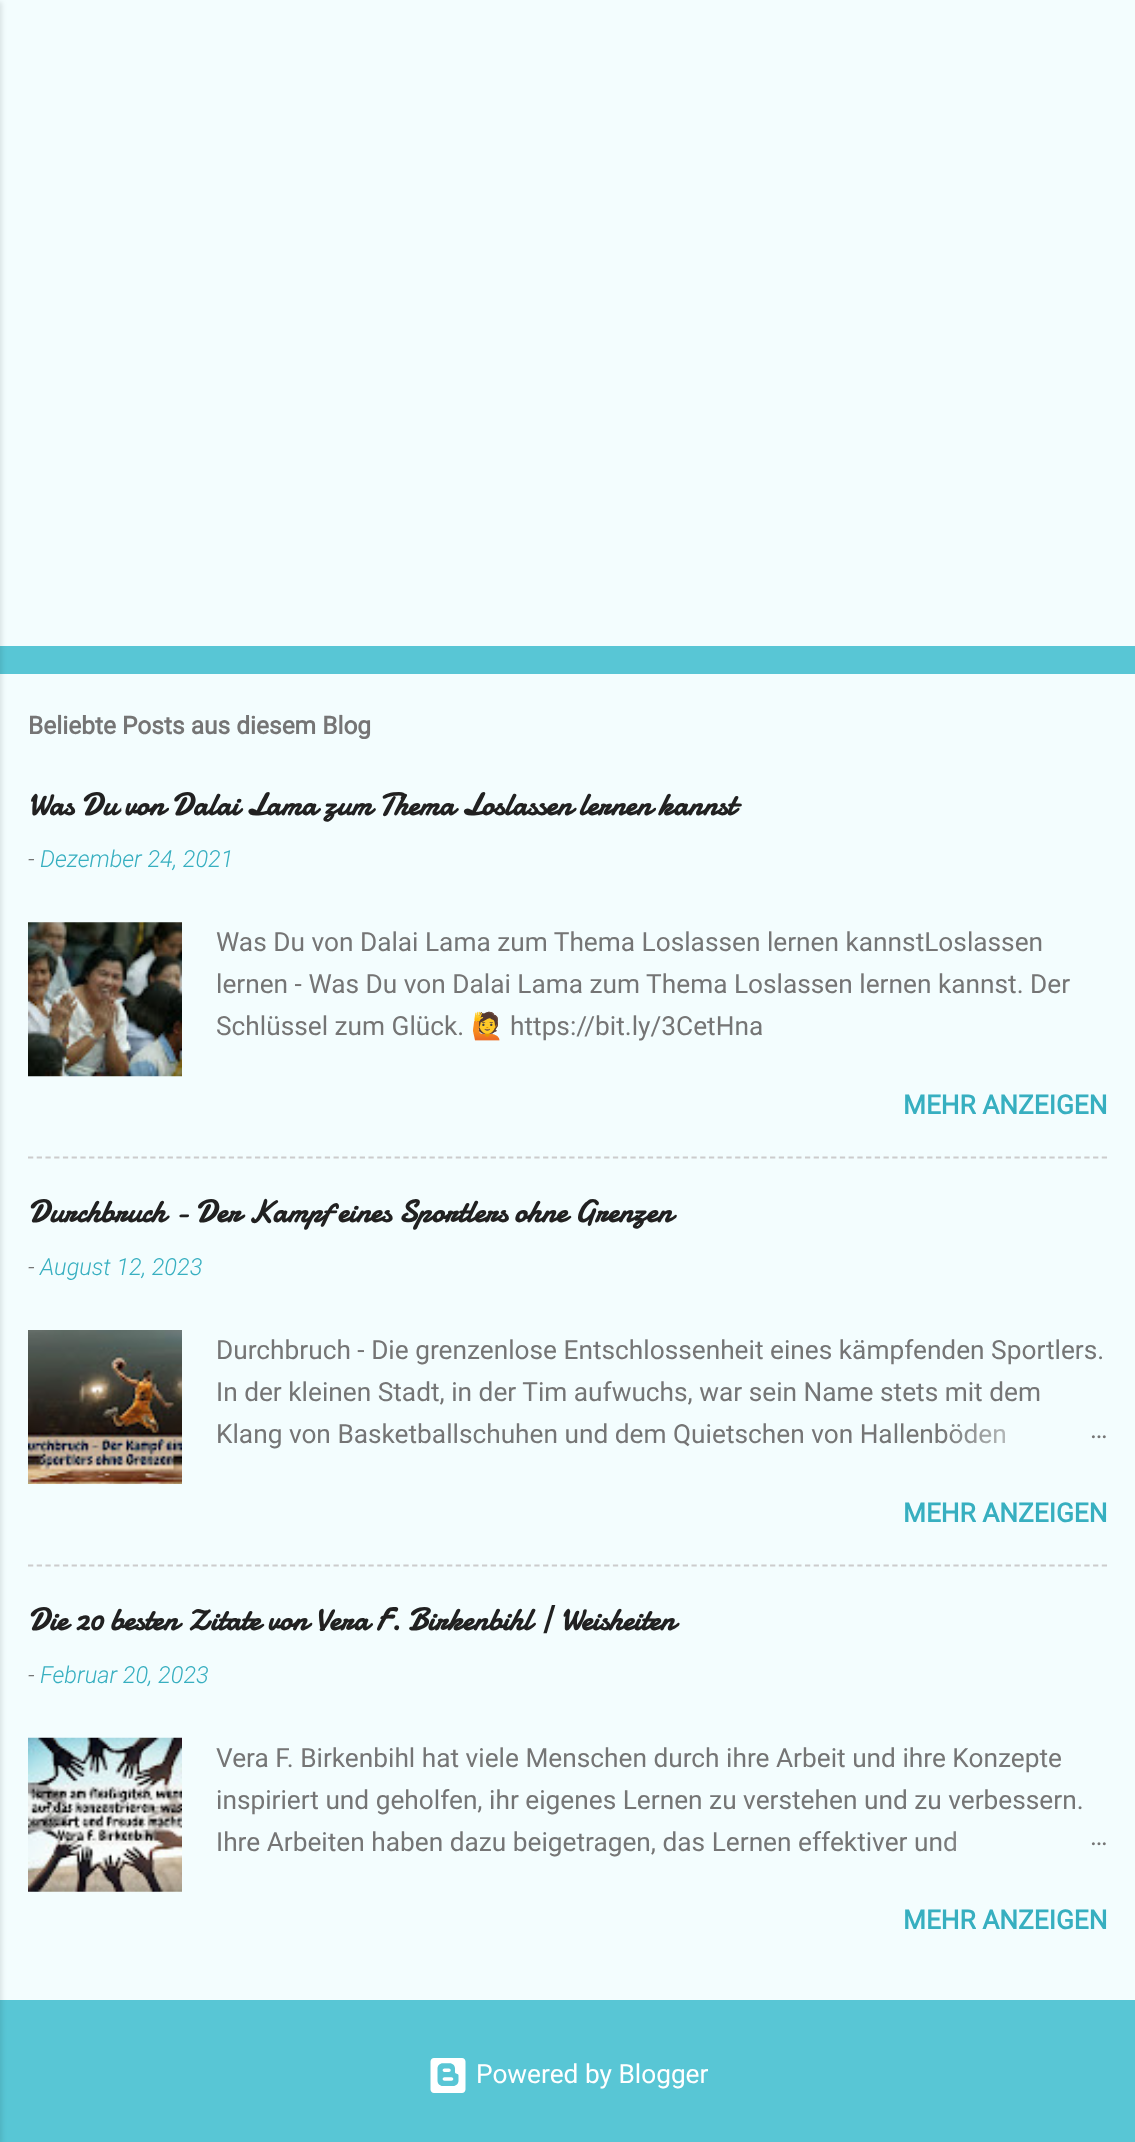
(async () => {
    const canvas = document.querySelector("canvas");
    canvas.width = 1135;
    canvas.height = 2142;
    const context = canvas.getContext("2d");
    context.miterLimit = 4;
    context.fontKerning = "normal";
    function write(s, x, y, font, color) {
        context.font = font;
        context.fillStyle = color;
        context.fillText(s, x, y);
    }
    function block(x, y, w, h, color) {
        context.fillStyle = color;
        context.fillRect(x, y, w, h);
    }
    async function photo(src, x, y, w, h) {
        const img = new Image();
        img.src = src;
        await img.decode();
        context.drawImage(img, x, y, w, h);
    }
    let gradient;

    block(0, 0, 1135, 2142, "rgb(88, 198, 213)");
    block(0, 0, 1135, 646, "rgb(243, 253, 254)");
    block(0, 674, 1135, 1326, "rgb(243, 253, 254)");
    context.fillStyle = "rgba(0, 0, 0, 0.1)";
    context.filter = "blur(2.5px)";
    context.beginPath();
    context.rect(-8, 2, 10, 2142);
    context.fill();
    context.filter = "none";
    write("Beliebte Posts aus diesem Blog", 28, 734, "bold 24.5px Roboto", "rgb(117, 117, 117)");
    write("Was Du von Dalai Lama zum Thema Loslassen lernen kannst", 28, 815, "bold 31.5px Damion", "rgb(33, 33, 33)");
    write("-", 28, 867, "italic 300 23.5px Roboto", "rgb(117, 117, 117)");
    write("Dezember 24, 2021", 40, 867, "italic 300 23.5px Roboto", "rgb(55, 175, 192)");
    await photo("media/1.png", 28, 922, 154, 155);
    write("Was Du von Dalai Lama zum Thema Loslassen lernen kannstLoslassen", 216, 951, "26.25px Roboto", "rgb(117, 117, 117)");
    write("lernen - Was Du von Dalai Lama zum Thema Loslassen lernen kannst. Der", 216, 993, "26.25px Roboto", "rgb(117, 117, 117)");
    write("Schlüssel zum Glück.", 216, 1035, "26.25px Roboto", "rgb(117, 117, 117)");
    write("🙋", 471, 1035, "26.25px Noto Color Emoji", "rgb(117, 117, 117)");
    write("https://bit.ly/3CetHna", 510, 1035, "26.25px Roboto", "rgb(117, 117, 117)");
    write("MEHR ANZEIGEN", 903, 1114, "bold 26.25px Roboto", "rgb(55, 175, 192)");
    context.beginPath();
    context.moveTo(28, 1157.5);
    context.lineTo(1108, 1157.5);
    context.strokeStyle = "rgb(204, 204, 204)";
    context.lineWidth = 1.8;
    context.setLineDash([5.25, 3.48]);
    context.stroke();
    write("Durchbruch - Der Kampf eines Sportlers ohne Grenzen", 28, 1222, "bold 31.5px Damion", "rgb(33, 33, 33)");
    write("-", 28, 1275, "italic 300 23.5px Roboto", "rgb(117, 117, 117)");
    write("August 12, 2023", 40, 1275, "italic 300 23.5px Roboto", "rgb(55, 175, 192)");
    await photo("media/2.png", 28, 1330, 154, 154);
    write("Durchbruch - Die grenzenlose Entschlossenheit eines kämpfenden Sportlers.", 216, 1359, "26.25px Roboto", "rgb(117, 117, 117)");
    write("In der kleinen Stadt, in der Tim aufwuchs, war sein Name stets mit dem", 216, 1401, "26.25px Roboto", "rgb(117, 117, 117)");
    write("Klang von Basketballschuhen und dem Quietschen von Hallenböden", 216, 1443, "26.25px Roboto", "rgb(117, 117, 117)");
    gradient = context.createLinearGradient(1108, 1435, 940, 1435);
    gradient.addColorStop(0, "rgb(243, 253, 254)");
    gradient.addColorStop(0.2, "rgb(243, 253, 254)");
    gradient.addColorStop(1, "rgba(243, 253, 254, 0)");
    context.fillStyle = gradient;
    context.fillRect(943, 1423, 63, 21);
    write("…", 1090, 1438, "26.25px Roboto", "rgb(117, 117, 117)");
    write("MEHR ANZEIGEN", 903, 1522, "bold 26.25px Roboto", "rgb(55, 175, 192)");
    context.beginPath();
    context.moveTo(28, 1565.5);
    context.lineTo(1108, 1565.5);
    context.stroke();
    write("Die 20 besten Zitate von Vera F. Birkenbihl | Weisheiten", 28, 1630, "bold 31.5px Damion", "rgb(33, 33, 33)");
    write("-", 28, 1683, "italic 300 23.5px Roboto", "rgb(117, 117, 117)");
    write("Februar 20, 2023", 40, 1683, "italic 300 23.5px Roboto", "rgb(55, 175, 192)");
    await photo("media/3.png", 28, 1737, 154, 155);
    write("Vera F. Birkenbihl hat viele Menschen durch ihre Arbeit und ihre Konzepte", 216, 1767, "26.25px Roboto", "rgb(117, 117, 117)");
    write("inspiriert und geholfen, ihr eigenes Lernen zu verstehen und zu verbessern.", 216, 1809, "26.25px Roboto", "rgb(117, 117, 117)");
    write("Ihre Arbeiten haben dazu beigetragen, das Lernen effektiver und", 216, 1851, "26.25px Roboto", "rgb(117, 117, 117)");
    gradient = context.createLinearGradient(1108, 1843, 940, 1843);
    gradient.addColorStop(0, "rgb(243, 253, 254)");
    gradient.addColorStop(0.2, "rgb(243, 253, 254)");
    gradient.addColorStop(1, "rgba(243, 253, 254, 0)");
    context.fillStyle = gradient;
    context.fillRect(944, 1831, 12, 20);
    write("…", 1090, 1845, "26.25px Roboto", "rgb(117, 117, 117)");
    write("MEHR ANZEIGEN", 903, 1929, "bold 26.25px Roboto", "rgb(55, 175, 192)");
    await photo("media/4.png", 430, 2058, 36, 35);
    write("Powered by Blogger", 476, 2083, "26.25px Roboto", "rgb(255, 255, 255)");
})();
